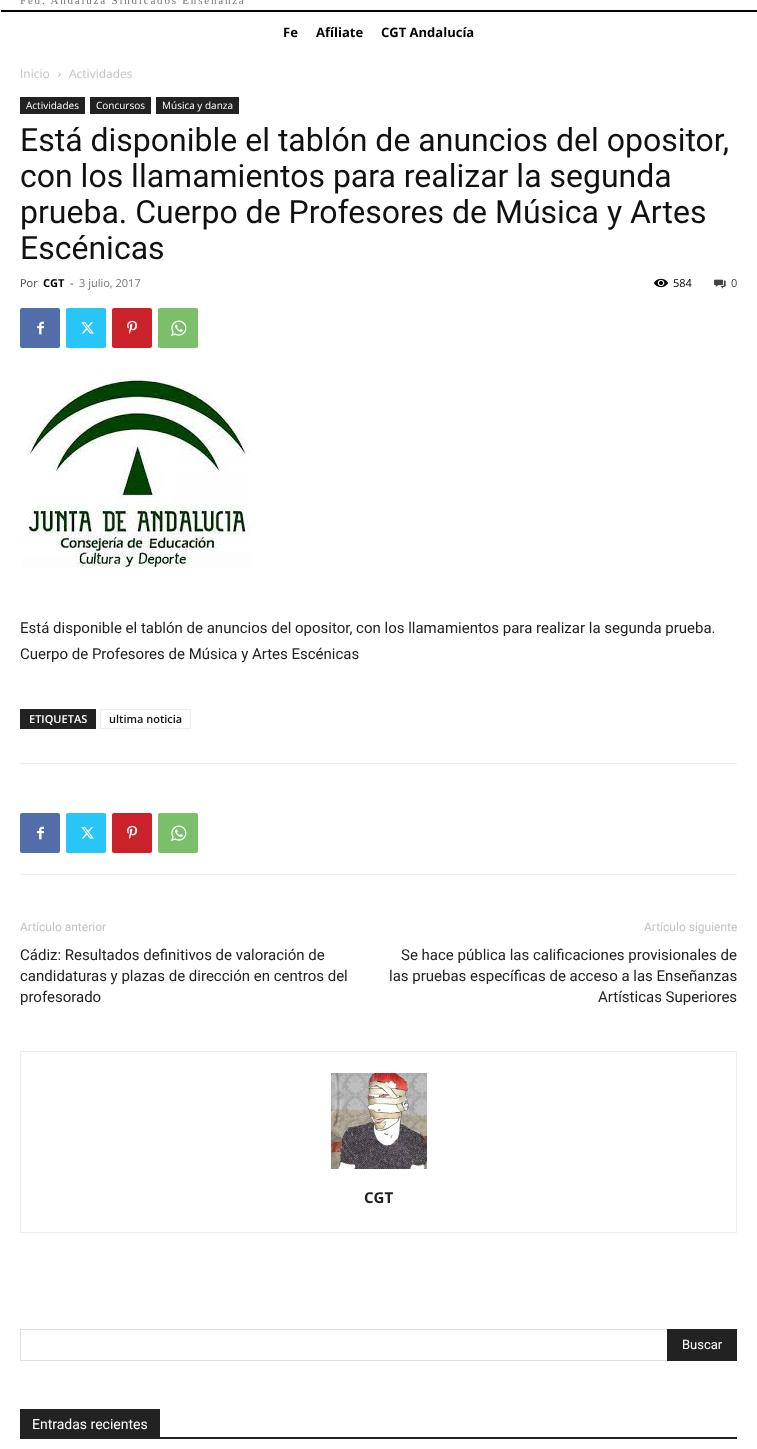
(async () => {
    const canvas = document.querySelector("canvas");
    canvas.width = 757;
    canvas.height = 1449;
    const context = canvas.getContext("2d");
    context.miterLimit = 4;
    context.fontKerning = "normal";
    function write(s, x, y, font, color) {
        context.font = font;
        context.fillStyle = color;
        context.fillText(s, x, y);
    }
    function block(x, y, w, h, color) {
        context.fillStyle = color;
        context.fillRect(x, y, w, h);
    }
    function card(x, y, w, h, r, color) {
        context.fillStyle = color;
        context.beginPath();
        context.roundRect(x, y, w, h, r);
        context.fill();
    }
    async function photo(src, x, y, w, h) {
        const img = new Image();
        img.src = src;
        await img.decode();
        context.drawImage(img, x, y, w, h);
    }

    block(0, 0, 757, 1449, "rgb(255, 255, 255)");
    context.letterSpacing = "1.8px";
    write("Fed. Andaluza Sindicados Enseñanza", 20, 4, "11px Liberation Serif", "rgb(118, 118, 118)");
    block(1, 10, 756, 2, "rgb(0, 0, 0)");
    context.letterSpacing = "0px";
    write("Fe", 283, 37, "bold 13px Open Sans", "rgb(0, 0, 0)");
    write("Afíliate", 316, 37, "bold 13px Open Sans", "rgb(0, 0, 0)");
    write("CGT Andalucía", 381, 37, "bold 13px Open Sans", "rgb(0, 0, 0)");
    write("Inicio", 20, 78, "12px Open Sans", "rgb(195, 195, 195)");
    await photo("media/1.png", 58, 72, 3, 5);
    write("Actividades", 69, 78, "12px Open Sans", "rgb(195, 195, 195)");
    block(20, 97, 65, 17, "rgb(34, 34, 34)");
    write("Actividades", 26, 109, "10px Open Sans", "rgb(255, 255, 255)");
    block(90, 97, 61, 17, "rgb(34, 34, 34)");
    write("Concursos", 96, 109, "10px Open Sans", "rgb(255, 255, 255)");
    block(156, 97, 83, 17, "rgb(34, 34, 34)");
    write("Música y danza", 162, 109, "10px Open Sans", "rgb(255, 255, 255)");
    write("Está disponible el tablón de anuncios del opositor,", 20, 151, "32px Roboto", "rgb(17, 17, 17)");
    write("con los llamamientos para realizar la segunda", 20, 187, "32px Roboto", "rgb(17, 17, 17)");
    write("prueba. Cuerpo de Profesores de Música y Artes", 20, 223, "32px Roboto", "rgb(17, 17, 17)");
    write("Escénicas", 20, 259, "32px Roboto", "rgb(17, 17, 17)");
    write("Por", 20, 287, "11px Open Sans", "rgb(68, 68, 68)");
    write("CGT", 43, 287, "bold 11px Open Sans", "rgb(0, 0, 0)");
    write("-", 70, 287, "11px Open Sans", "rgb(68, 68, 68)");
    write("3 julio, 2017", 79, 287, "11px Open Sans", "rgb(118, 118, 118)");
    await photo("media/2.png", 654, 278, 14, 10);
    write("584", 673, 287, "11px Open Sans", "rgb(0, 0, 0)");
    await photo("media/3.png", 714, 279, 12, 10);
    write("0", 731, 287, "11px Open Sans", "rgb(68, 68, 68)");
    card(20, 308, 40, 40, 2, "rgb(81, 110, 171)");
    await photo("media/4.png", 37, 321, 7, 14);
    card(66, 308, 40, 40, 2, "rgb(41, 197, 246)");
    await photo("media/5.png", 81, 322, 13, 12);
    card(112, 308, 40, 40, 2, "rgb(202, 33, 42)");
    await photo("media/6.png", 127, 320, 11, 14);
    card(158, 308, 40, 40, 2, "rgb(123, 191, 106)");
    await photo("media/7.png", 171, 320, 16, 16);
    await photo("media/8.png", 22, 375, 230, 192);
    write("Está disponible el tablón de anuncios del opositor, con los llamamientos para realizar la segunda prueba.", 20, 633, "15px Roboto", "rgb(34, 34, 34)");
    write("Cuerpo de Profesores de Música y Artes Escénicas", 20, 659, "15px Roboto", "rgb(34, 34, 34)");
    block(20, 709, 76, 20, "rgb(34, 34, 34)");
    write("ETIQUETAS", 29, 723, "600 11px Open Sans", "rgb(255, 255, 255)");
    context.strokeStyle = "rgb(237, 237, 237)";
    context.strokeRect(100.5, 709.5, 90, 19);
    write("ultima noticia", 109, 723, "600 11px Open Sans", "rgb(17, 17, 17)");
    block(20, 763, 717, 1, "rgb(237, 237, 237)");
    block(20, 874, 717, 1, "rgb(237, 237, 237)");
    card(20, 813, 40, 40, 2, "rgb(81, 110, 171)");
    await photo("media/4.png", 37, 826, 7, 14);
    card(66, 813, 40, 40, 2, "rgb(41, 197, 246)");
    await photo("media/5.png", 81, 827, 13, 12);
    card(112, 813, 40, 40, 2, "rgb(202, 33, 42)");
    await photo("media/6.png", 127, 825, 11, 14);
    card(158, 813, 40, 40, 2, "rgb(123, 191, 106)");
    await photo("media/7.png", 171, 825, 16, 16);
    write("Artículo anterior", 20, 931, "12px Roboto", "rgb(195, 195, 195)");
    write("Cádiz: Resultados definitivos de valoración de", 20, 960, "15px Roboto", "rgb(34, 34, 34)");
    write("candidaturas y plazas de dirección en centros del", 20, 981, "15px Roboto", "rgb(34, 34, 34)");
    write("profesorado", 20, 1002, "15px Roboto", "rgb(34, 34, 34)");
    write("Artículo siguiente", 644, 931, "12px Roboto", "rgb(195, 195, 195)");
    write("Se hace pública las calificaciones provisionales de", 401, 960, "15px Roboto", "rgb(34, 34, 34)");
    write("las pruebas específicas de acceso a las Enseñanzas", 389, 981, "15px Roboto", "rgb(34, 34, 34)");
    write("Artísticas Superiores", 598, 1002, "15px Roboto", "rgb(34, 34, 34)");
    context.strokeRect(20.5, 1051.5, 716, 181);
    await photo("media/9.png", 331, 1073, 96, 96);
    write("CGT", 364, 1203, "bold 15px Open Sans", "rgb(34, 34, 34)");
    block(20, 1329, 647, 1, "rgb(225, 225, 225)");
    block(20, 1360, 647, 1, "rgb(225, 225, 225)");
    block(20, 1329, 1, 32, "rgb(225, 225, 225)");
    block(667, 1329, 70, 32, "rgb(34, 34, 34)");
    write("Buscar", 682, 1349, "13px Roboto", "rgb(255, 255, 255)");
    block(20, 1437, 717, 2, "rgb(34, 34, 34)");
    block(20, 1409, 140, 28, "rgb(34, 34, 34)");
    write("Entradas recientes", 32, 1429, "14px Roboto", "rgb(255, 255, 255)");
})();
